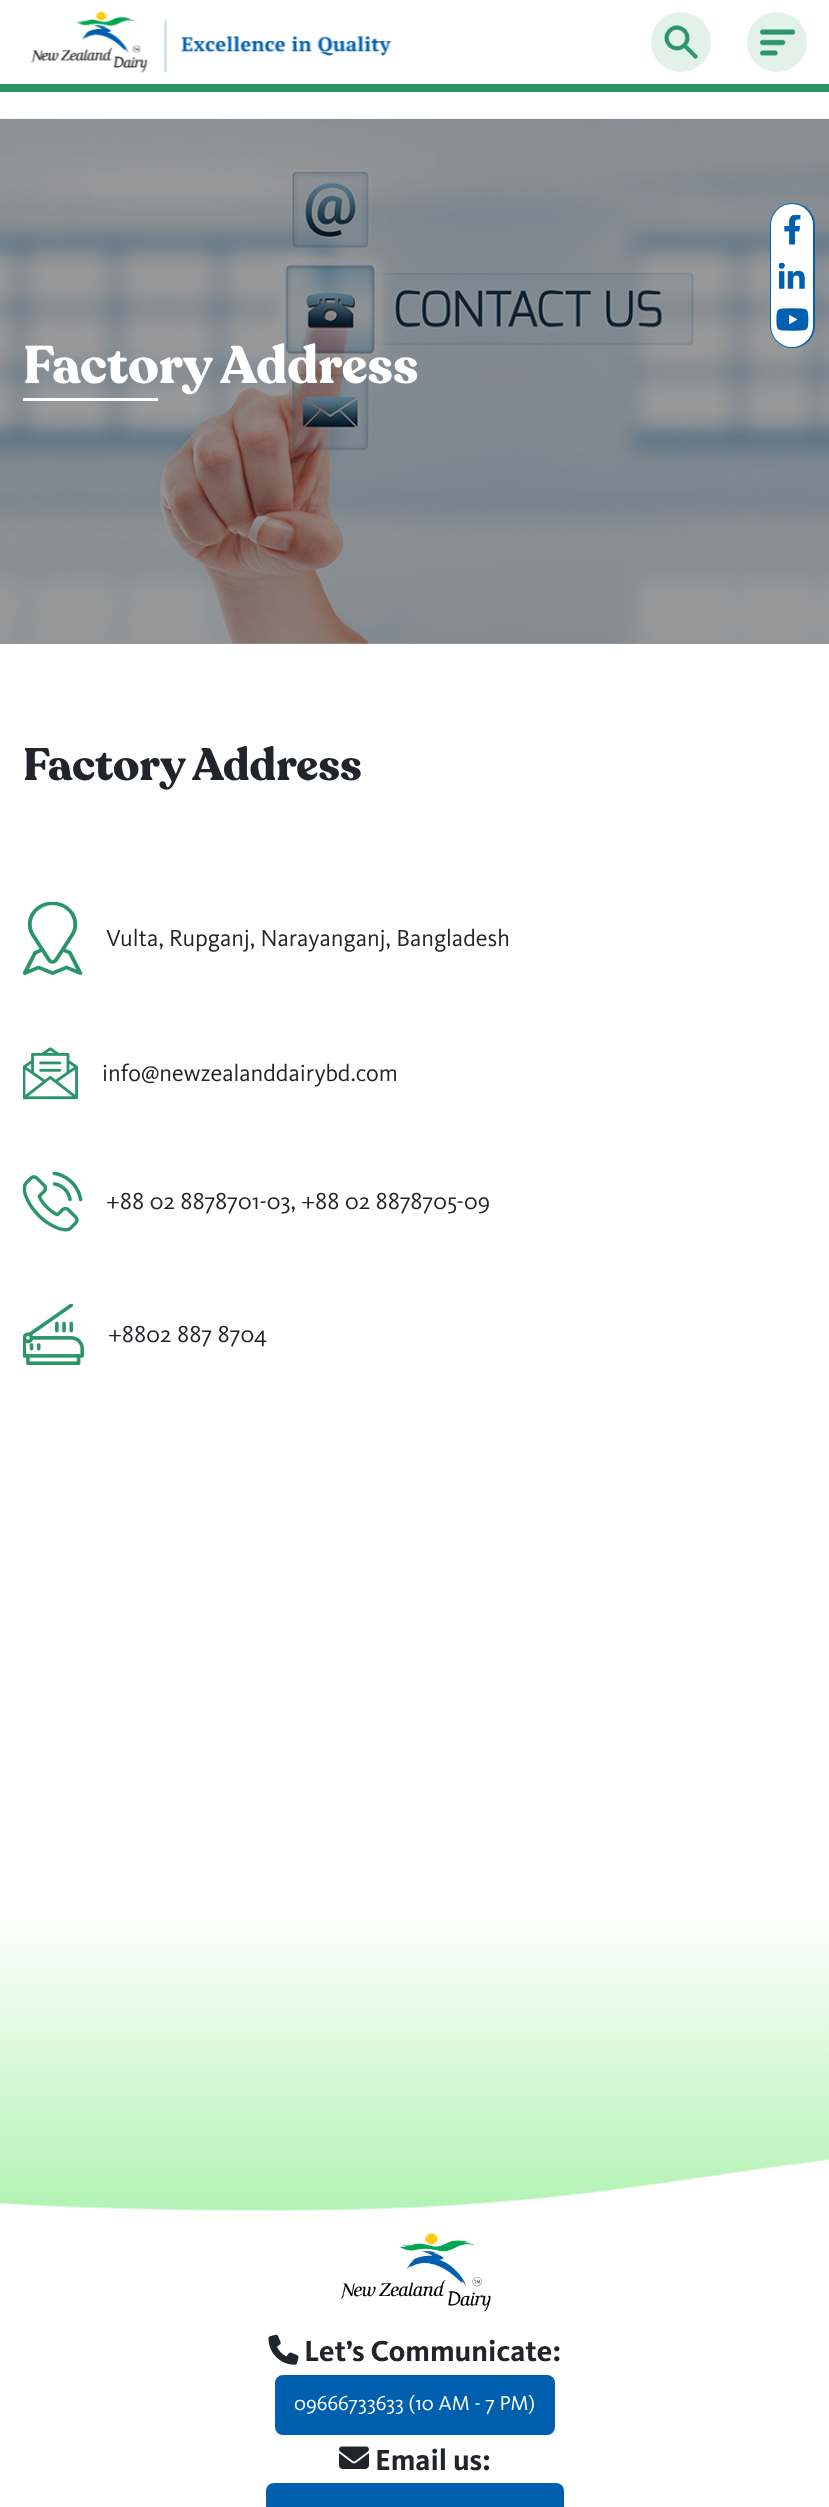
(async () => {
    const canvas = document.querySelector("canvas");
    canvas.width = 829;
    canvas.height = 2507;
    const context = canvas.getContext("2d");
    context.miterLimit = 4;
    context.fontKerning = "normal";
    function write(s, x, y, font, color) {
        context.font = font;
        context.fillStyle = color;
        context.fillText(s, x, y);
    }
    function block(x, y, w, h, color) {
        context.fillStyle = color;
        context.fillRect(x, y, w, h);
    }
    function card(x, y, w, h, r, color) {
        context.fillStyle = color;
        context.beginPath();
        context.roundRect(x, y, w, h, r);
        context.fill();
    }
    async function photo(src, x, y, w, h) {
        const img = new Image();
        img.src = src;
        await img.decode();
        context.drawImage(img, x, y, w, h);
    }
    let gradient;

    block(0, 0, 829, 2507, "rgb(255, 255, 255)");
    block(0, 643, 829, 1, "rgb(153, 153, 153)");
    block(0, 84, 829, 8, "rgb(41, 149, 104)");
    await photo("media/1.png", 30, 11, 362, 62);
    context.fillStyle = "rgb(227, 241, 235)";
    context.beginPath();
    context.arc(681, 42, 30, 0, Math.PI * 2);
    context.fill();
    await photo("media/2.png", 664, 25, 34, 34);
    context.beginPath();
    context.arc(777, 42, 30, 0, Math.PI * 2);
    context.fill();
    await photo("media/3.png", 760, 29, 35, 27);
    await photo("media/7.png", 0, 118, 829, 526);
    context.beginPath();
    context.roundRect(771, 204, 43, 143, 21.5);
    context.strokeStyle = "rgb(0, 96, 175)";
    context.lineWidth = 2;
    context.stroke();
    context.fillStyle = "rgb(255, 255, 255)";
    context.beginPath();
    context.roundRect(771, 204, 42, 48, [21, 21, 0, 0]);
    context.fill();
    await photo("media/4.png", 784, 215, 17, 30);
    block(771, 252, 42, 47, "rgb(255, 255, 255)");
    await photo("media/5.png", 779, 263, 26, 26);
    context.beginPath();
    context.roundRect(771, 299, 42, 48, [0, 0, 21, 21]);
    context.fill();
    await photo("media/6.png", 776, 308, 33, 23);
    write("Factory Address", 23, 383, "bold 52.5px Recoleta", "rgb(255, 255, 255)");
    block(23, 398, 135, 3, "rgb(255, 255, 255)");
    write("Factory Address", 23, 780, "bold 45px Recoleta", "rgb(33, 37, 41)");
    await photo("media/8.png", 23, 902, 60, 73);
    write("Vulta, Rupganj, Narayanganj, Bangladesh", 106, 946, "24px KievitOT", "rgb(33, 37, 41)");
    await photo("media/9.png", 23, 1047, 55, 53);
    write("info@newzealanddairybd.com", 102, 1081, "24px KievitOT", "rgb(33, 37, 41)");
    await photo("media/10.png", 23, 1172, 60, 60);
    write("+88 02 8878701-03, +88 02 8878705-09", 106, 1209, "24px KievitOT", "rgb(33, 37, 41)");
    await photo("media/11.png", 23, 1304, 61, 61);
    write("+8802 887 8704", 108, 1342, "24px KievitOT", "rgb(33, 37, 41)");
    gradient = context.createLinearGradient(415, 2211, 415, 1911);
    gradient.addColorStop(0, "rgb(178, 243, 179)");
    gradient.addColorStop(1, "rgb(255, 255, 255)");
    context.fillStyle = gradient;
    context.fillRect(0, 1921, 829, 290);
    await photo("media/12.png", 0, 2159, 829, 52);
    await photo("media/13.png", 340, 2233, 151, 79);
    await photo("media/14.png", 268, 2334, 31, 31);
    write("Let’s Communicate:", 304, 2361, "bold 30px KievitOT", "rgb(33, 37, 41)");
    card(275, 2375, 280, 60, 8, "rgb(0, 96, 175)");
    write("09666733633 (10 AM - 7 PM)", 294, 2410, "21px KievitOT", "rgb(255, 255, 255)");
    await photo("media/15.png", 339, 2446, 30, 23);
    write("Email us:", 375, 2470, "bold 30px KievitOT", "rgb(33, 37, 41)");
    card(266, 2483, 298, 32, 8, "rgb(0, 96, 175)");
})();
